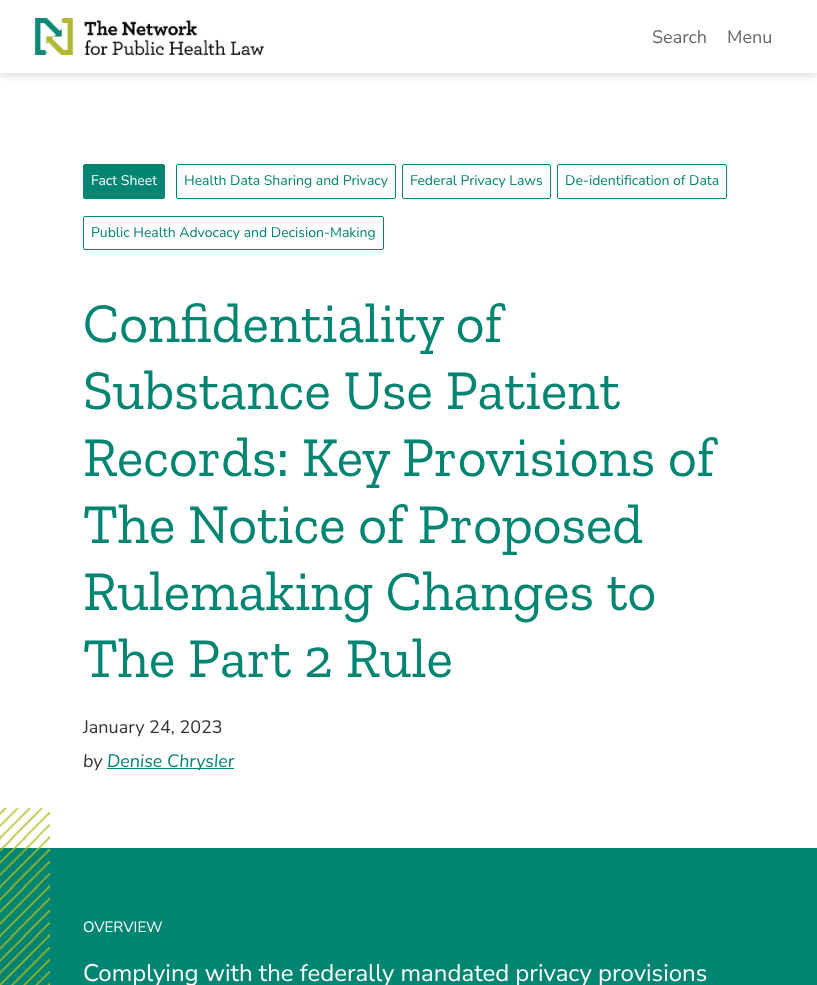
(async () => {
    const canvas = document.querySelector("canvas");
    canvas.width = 817;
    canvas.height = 985;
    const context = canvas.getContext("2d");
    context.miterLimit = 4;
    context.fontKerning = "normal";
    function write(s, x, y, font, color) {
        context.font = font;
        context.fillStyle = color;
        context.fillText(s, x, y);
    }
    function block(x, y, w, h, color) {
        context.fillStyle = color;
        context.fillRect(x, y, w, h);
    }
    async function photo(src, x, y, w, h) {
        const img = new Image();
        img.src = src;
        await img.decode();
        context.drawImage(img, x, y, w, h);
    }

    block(0, 0, 817, 985, "rgb(255, 255, 255)");
    context.fillStyle = "rgba(0, 0, 0, 0.1)";
    context.filter = "blur(3px)";
    context.beginPath();
    context.rect(0, 4, 817, 73);
    context.fill();
    context.filter = "none";
    block(0, 0, 817, 73, "rgb(255, 255, 255)");
    await photo("media/1.png", 34, 18, 230, 37);
    write("Search", 652, 43, "18px Nunito Sans", "rgb(102, 102, 102)");
    write("Menu", 727, 43, "18px Nunito Sans", "rgb(102, 102, 102)");
    context.fillStyle = "rgb(0, 133, 115)";
    context.beginPath();
    context.roundRect(83.5, 164.5, 81, 34, 1.5);
    context.fill();
    context.strokeStyle = "rgb(0, 133, 115)";
    context.stroke();
    write("Fact Sheet", 91, 185, "14px Nunito Sans", "rgb(255, 255, 255)");
    context.beginPath();
    context.roundRect(176.5, 164.5, 219, 34, 1.5);
    context.stroke();
    write("Health Data Sharing and Privacy", 184, 185, "14px Nunito Sans", "rgb(0, 133, 115)");
    context.beginPath();
    context.roundRect(402.5, 164.5, 148, 34, 1.5);
    context.stroke();
    write("Federal Privacy Laws", 410, 185, "14px Nunito Sans", "rgb(0, 133, 115)");
    context.beginPath();
    context.roundRect(557.5, 164.5, 169, 34, 1.5);
    context.stroke();
    write("De-identification of Data", 565, 185, "14px Nunito Sans", "rgb(0, 133, 115)");
    context.beginPath();
    context.roundRect(83.5, 216.5, 300, 33, 1.5);
    context.stroke();
    write("Public Health Advocacy and Decision-Making", 91, 237, "14px Nunito Sans", "rgb(0, 133, 115)");
    write("Confidentiality of", 83, 342, "56px Zilla Slab", "rgb(0, 133, 115)");
    write("Substance Use Patient", 83, 409, "56px Zilla Slab", "rgb(0, 133, 115)");
    write("Records: Key Provisions of", 83, 476, "56px Zilla Slab", "rgb(0, 133, 115)");
    write("The Notice of Proposed", 83, 543, "56px Zilla Slab", "rgb(0, 133, 115)");
    write("Rulemaking Changes to", 83, 610, "56px Zilla Slab", "rgb(0, 133, 115)");
    write("The Part 2 Rule", 83, 677, "56px Zilla Slab", "rgb(0, 133, 115)");
    write("January 24, 2023", 83, 733, "18px Nunito Sans", "rgb(51, 51, 51)");
    write("by", 83, 767, "italic 18px Nunito Sans", "rgb(51, 51, 51)");
    block(107, 768, 127, 1, "rgb(0, 133, 115)");
    write("Denise Chrysler", 107, 767, "italic 18px Nunito Sans", "rgb(0, 133, 115)");
    block(0, 848, 817, 137, "rgb(0, 133, 115)");
    await photo("media/2.png", 0, 808, 50, 177);
    write("OVERVIEW", 83, 932, "15px Nunito Sans", "rgb(255, 255, 255)");
    write("Complying with the federally mandated privacy provisions", 83, 981, "24px Nunito Sans", "rgb(255, 255, 255)");
})();
